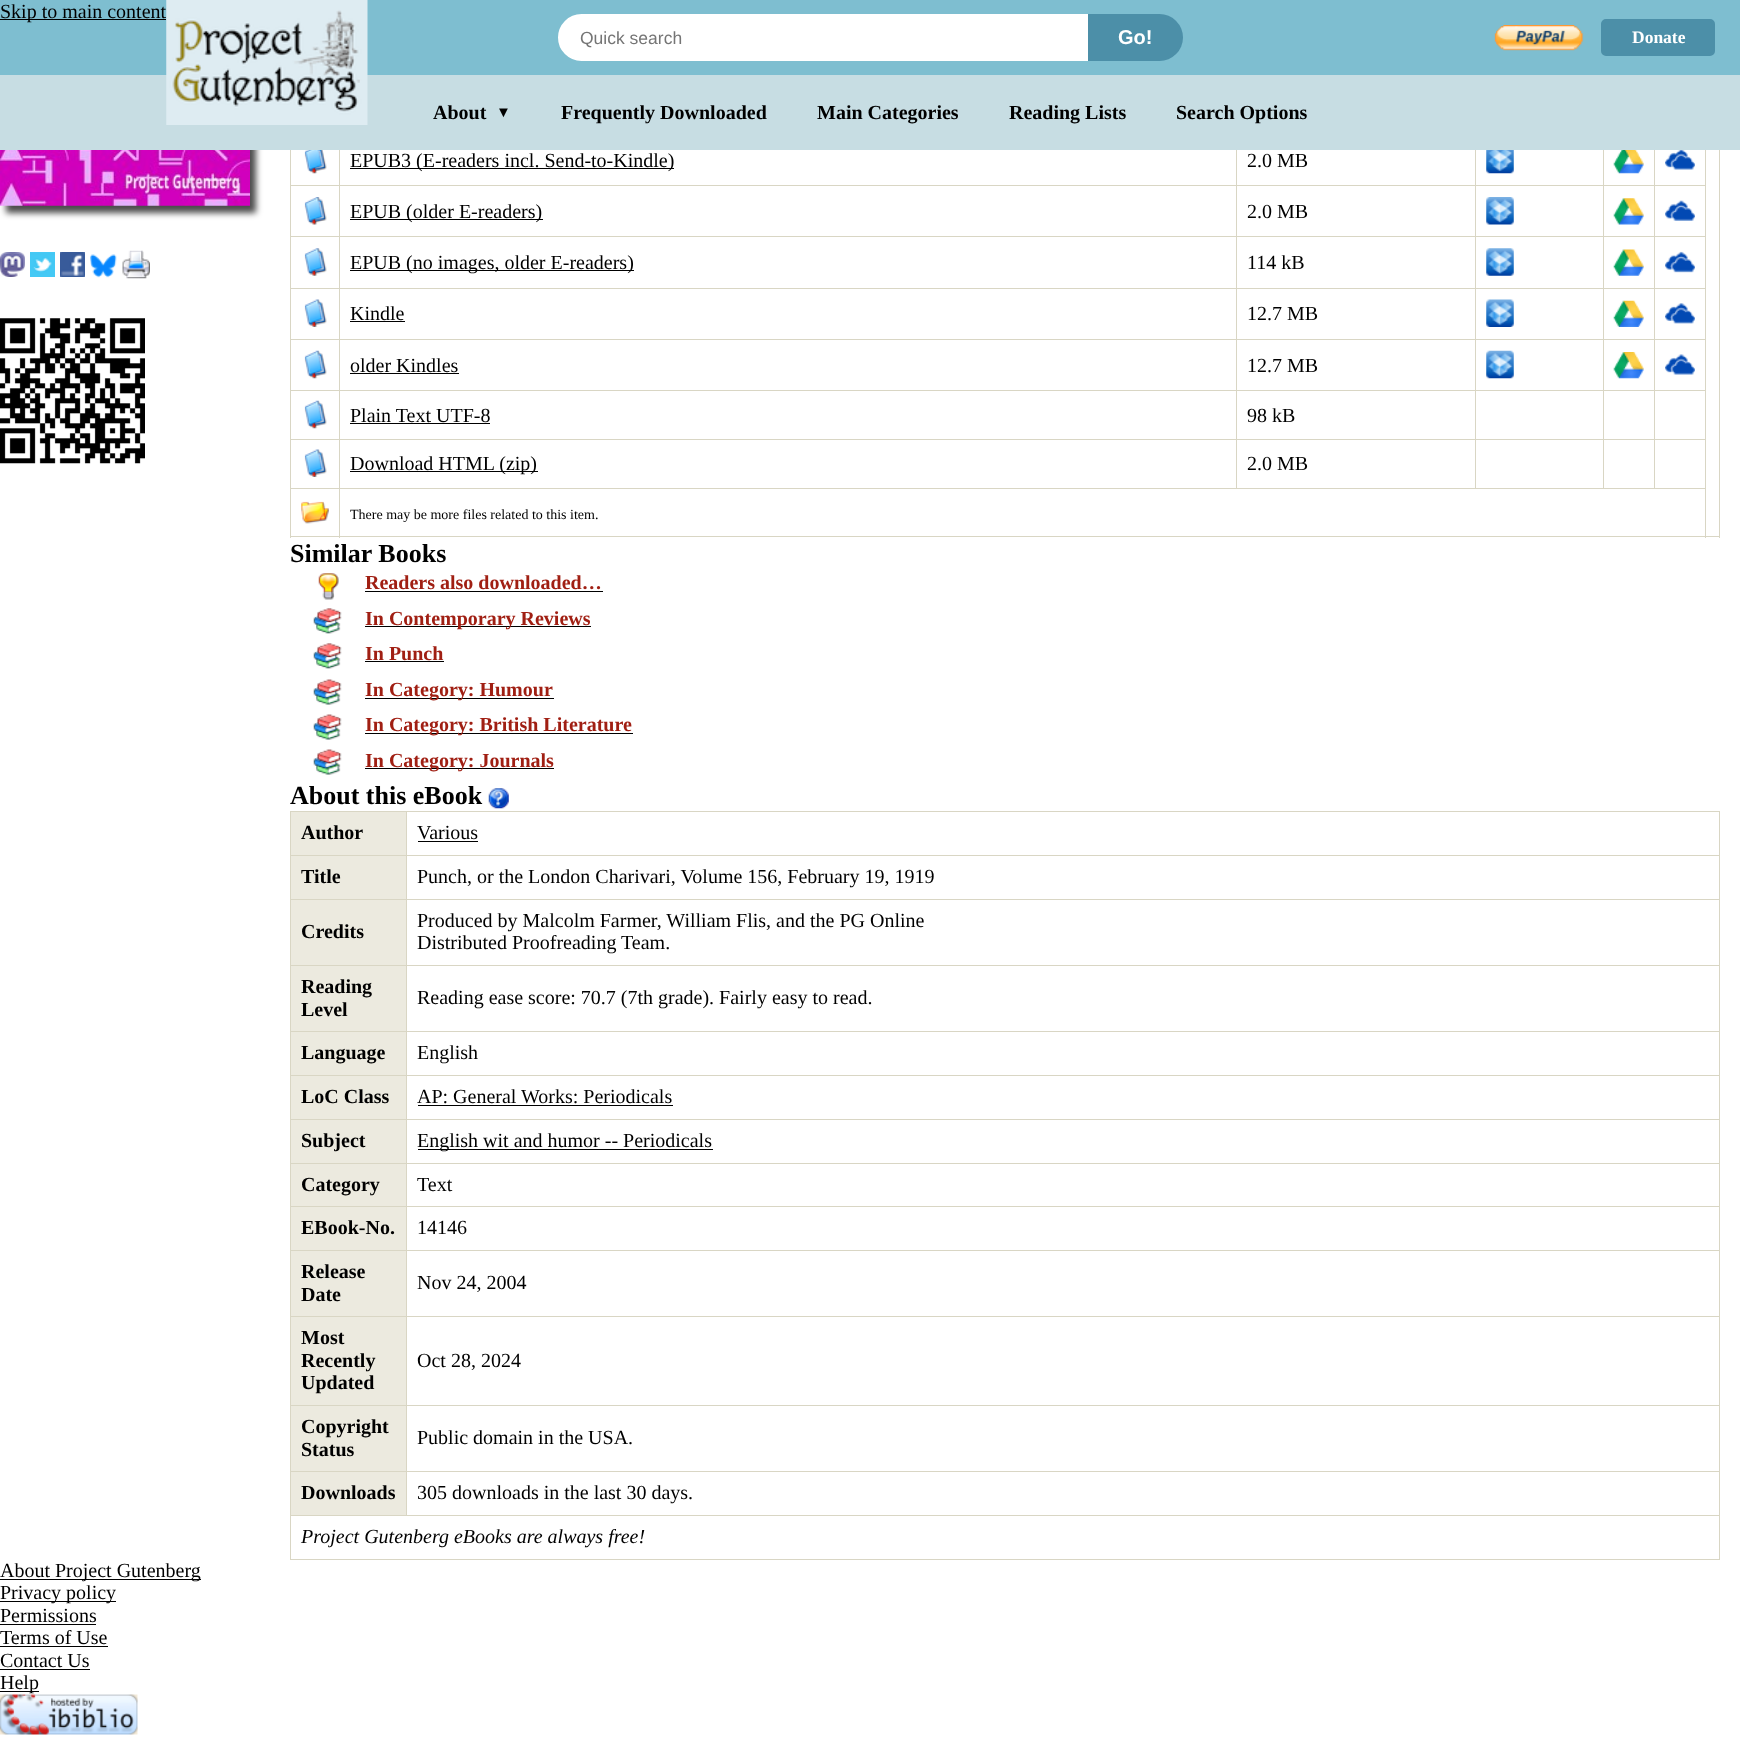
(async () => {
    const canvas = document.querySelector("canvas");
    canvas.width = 1740;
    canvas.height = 1740;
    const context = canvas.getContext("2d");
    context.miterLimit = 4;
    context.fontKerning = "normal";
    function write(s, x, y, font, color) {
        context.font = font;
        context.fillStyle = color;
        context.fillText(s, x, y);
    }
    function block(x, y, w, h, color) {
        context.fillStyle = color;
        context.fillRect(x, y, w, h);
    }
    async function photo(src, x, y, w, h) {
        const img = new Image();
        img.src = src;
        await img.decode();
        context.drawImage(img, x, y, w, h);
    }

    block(0, 0, 1740, 1740, "rgb(255, 255, 255)");
    context.fillStyle = "rgba(0, 0, 0, 0.7)";
    context.filter = "blur(3px)";
    context.beginPath();
    context.rect(6, -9, 250, 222);
    context.fill();
    context.filter = "none";
    block(0, 0, 1740, 75, "rgb(126, 190, 208)");
    block(0, 19, 166, 1, "rgb(0, 0, 0)");
    write("Skip to main content", 0, 18, "20px Liberation Serif", "rgb(0, 0, 0)");
    block(0, 75, 1740, 75, "rgb(199, 221, 227)");
    await photo("media/1.png", 166, 0, 202, 125);
    context.fillStyle = "rgb(255, 255, 255)";
    context.beginPath();
    context.roundRect(559.5, 15.5, 527, 44, [22, 0, 0, 22]);
    context.fill();
    context.strokeStyle = "rgb(255, 255, 255)";
    context.lineWidth = 3;
    context.stroke();
    write("Quick search", 580, 44, "17.5px Liberation Sans", "rgb(117, 117, 117)");
    context.fillStyle = "rgb(76, 143, 168)";
    context.beginPath();
    context.roundRect(1088, 14, 95, 47, [0, 23.5, 23.5, 0]);
    context.fill();
    write("Go!", 1118, 44, "bold 20px Liberation Sans", "rgb(255, 255, 255)");
    await photo("media/2.png", 1494, 25, 90, 26);
    context.fillStyle = "rgb(76, 143, 168)";
    context.beginPath();
    context.roundRect(1602.5, 20.5, 111, 34, 3.5);
    context.fill();
    context.strokeStyle = "rgb(76, 143, 168)";
    context.stroke();
    write("Donate", 1632, 43, "bold 17.5px Liberation Serif", "rgb(255, 255, 255)");
    write("About", 433, 119, "bold 20px Liberation Serif", "rgb(0, 0, 0)");
    write("▼", 496, 117, "bold 15px Liberation Serif", "rgb(0, 0, 0)");
    write("Frequently Downloaded", 561, 119, "bold 20px Liberation Serif", "rgb(0, 0, 0)");
    write("Main Categories", 817, 119, "bold 20px Liberation Serif", "rgb(0, 0, 0)");
    write("Reading Lists", 1009, 119, "bold 20px Liberation Serif", "rgb(0, 0, 0)");
    write("Search Options", 1176, 119, "bold 20px Liberation Serif", "rgb(0, 0, 0)");
    await photo("media/3.png", 0, 150, 250, 56);
    await photo("media/4.png", 0, 252, 25, 25);
    await photo("media/5.png", 30, 252, 25, 25);
    await photo("media/6.png", 60, 252, 25, 25);
    await photo("media/7.png", 90, 254, 27, 24);
    await photo("media/8.png", 122, 250, 28, 29);
    await photo("media/9.png", 0, 318, 145, 146);
    block(1719, 150, 1, 388, "rgb(217, 214, 196)");
    block(290, 536, 1430, 1, "rgb(217, 214, 196)");
    block(290, 150, 1, 388, "rgb(217, 214, 196)");
    await photo("media/10.png", 304, 150, 23, 24);
    block(1654, 185, 52, 1, "rgb(217, 214, 196)");
    block(1654, 236, 52, 1, "rgb(217, 214, 196)");
    block(1654, 288, 52, 1, "rgb(217, 214, 196)");
    block(1654, 339, 52, 1, "rgb(217, 214, 196)");
    block(1654, 390, 52, 1, "rgb(217, 214, 196)");
    block(1654, 439, 52, 1, "rgb(217, 214, 196)");
    block(339, 488, 1367, 1, "rgb(217, 214, 196)");
    block(1654, 439, 1, 50, "rgb(217, 214, 196)");
    block(1603, 439, 52, 1, "rgb(217, 214, 196)");
    block(1654, 390, 1, 50, "rgb(217, 214, 196)");
    block(1603, 390, 52, 1, "rgb(217, 214, 196)");
    block(1654, 339, 1, 52, "rgb(217, 214, 196)");
    block(1603, 339, 52, 1, "rgb(217, 214, 196)");
    block(1654, 288, 1, 52, "rgb(217, 214, 196)");
    block(1603, 288, 52, 1, "rgb(217, 214, 196)");
    block(1654, 236, 1, 53, "rgb(217, 214, 196)");
    block(1603, 236, 52, 1, "rgb(217, 214, 196)");
    block(1654, 185, 1, 53, "rgb(217, 214, 196)");
    block(1603, 185, 52, 1, "rgb(217, 214, 196)");
    block(1603, 439, 1, 50, "rgb(217, 214, 196)");
    block(1475, 439, 129, 1, "rgb(217, 214, 196)");
    block(1603, 390, 1, 50, "rgb(217, 214, 196)");
    block(1475, 390, 129, 1, "rgb(217, 214, 196)");
    block(1603, 339, 1, 52, "rgb(217, 214, 196)");
    block(1475, 339, 129, 1, "rgb(217, 214, 196)");
    block(1603, 288, 1, 52, "rgb(217, 214, 196)");
    block(1475, 288, 129, 1, "rgb(217, 214, 196)");
    block(1603, 236, 1, 53, "rgb(217, 214, 196)");
    block(1475, 236, 129, 1, "rgb(217, 214, 196)");
    block(1603, 185, 1, 53, "rgb(217, 214, 196)");
    block(1475, 185, 129, 1, "rgb(217, 214, 196)");
    block(1475, 439, 1, 50, "rgb(217, 214, 196)");
    block(1236, 439, 240, 1, "rgb(217, 214, 196)");
    block(1475, 390, 1, 50, "rgb(217, 214, 196)");
    block(1236, 390, 240, 1, "rgb(217, 214, 196)");
    block(1475, 339, 1, 52, "rgb(217, 214, 196)");
    block(1236, 339, 240, 1, "rgb(217, 214, 196)");
    block(1475, 288, 1, 52, "rgb(217, 214, 196)");
    block(1236, 288, 240, 1, "rgb(217, 214, 196)");
    block(1475, 236, 1, 53, "rgb(217, 214, 196)");
    block(1236, 236, 240, 1, "rgb(217, 214, 196)");
    block(1475, 185, 1, 53, "rgb(217, 214, 196)");
    block(1236, 185, 240, 1, "rgb(217, 214, 196)");
    block(1236, 439, 1, 50, "rgb(217, 214, 196)");
    block(339, 439, 899, 1, "rgb(217, 214, 196)");
    block(1236, 390, 1, 50, "rgb(217, 214, 196)");
    block(339, 390, 899, 1, "rgb(217, 214, 196)");
    block(1236, 339, 1, 52, "rgb(217, 214, 196)");
    block(339, 339, 899, 1, "rgb(217, 214, 196)");
    block(1236, 288, 1, 52, "rgb(217, 214, 196)");
    block(339, 288, 899, 1, "rgb(217, 214, 196)");
    block(1236, 236, 1, 53, "rgb(217, 214, 196)");
    block(339, 236, 899, 1, "rgb(217, 214, 196)");
    block(1236, 185, 1, 53, "rgb(217, 214, 196)");
    block(339, 185, 899, 1, "rgb(217, 214, 196)");
    block(339, 488, 1, 50, "rgb(217, 214, 196)");
    block(290, 488, 50, 1, "rgb(217, 214, 196)");
    block(339, 439, 1, 50, "rgb(217, 214, 196)");
    block(290, 439, 50, 1, "rgb(217, 214, 196)");
    block(339, 390, 1, 50, "rgb(217, 214, 196)");
    block(290, 390, 50, 1, "rgb(217, 214, 196)");
    block(339, 339, 1, 52, "rgb(217, 214, 196)");
    block(290, 339, 50, 1, "rgb(217, 214, 196)");
    block(339, 288, 1, 52, "rgb(217, 214, 196)");
    block(290, 288, 50, 1, "rgb(217, 214, 196)");
    block(339, 236, 1, 53, "rgb(217, 214, 196)");
    block(290, 236, 50, 1, "rgb(217, 214, 196)");
    block(339, 185, 1, 53, "rgb(217, 214, 196)");
    block(290, 185, 50, 1, "rgb(217, 214, 196)");
    block(339, 150, 1, 36, "rgb(217, 214, 196)");
    block(350, 168, 324, 1, "rgb(0, 0, 0)");
    write("EPUB3 (E-readers incl. Send-to-Kindle)", 350, 167, "20px Liberation Serif", "rgb(0, 0, 0)");
    block(1236, 150, 1, 36, "rgb(217, 214, 196)");
    write("2.0 MB", 1247, 167, "20px Liberation Serif", "rgb(0, 0, 0)");
    block(1475, 150, 1, 36, "rgb(217, 214, 196)");
    await photo("media/11.png", 1486, 150, 28, 24);
    block(1603, 150, 1, 36, "rgb(217, 214, 196)");
    await photo("media/12.png", 1613, 150, 31, 24);
    block(1654, 150, 1, 36, "rgb(217, 214, 196)");
    await photo("media/13.png", 1665, 150, 30, 20);
    await photo("media/14.png", 304, 197, 23, 28);
    block(350, 219, 193, 1, "rgb(0, 0, 0)");
    write("EPUB (older E-readers)", 350, 218, "20px Liberation Serif", "rgb(0, 0, 0)");
    write("2.0 MB", 1247, 218, "20px Liberation Serif", "rgb(0, 0, 0)");
    await photo("media/15.png", 1486, 197, 28, 28);
    await photo("media/16.png", 1613, 198, 31, 27);
    block(1705, 488, 1, 50, "rgb(217, 214, 196)");
    block(1705, 439, 1, 50, "rgb(217, 214, 196)");
    block(1705, 390, 1, 50, "rgb(217, 214, 196)");
    block(1705, 339, 1, 52, "rgb(217, 214, 196)");
    block(1705, 288, 1, 52, "rgb(217, 214, 196)");
    block(1705, 236, 1, 53, "rgb(217, 214, 196)");
    block(1705, 150, 1, 88, "rgb(217, 214, 196)");
    await photo("media/17.png", 1665, 200, 30, 21);
    await photo("media/18.png", 304, 248, 23, 28);
    block(350, 270, 284, 1, "rgb(0, 0, 0)");
    write("EPUB (no images, older E-readers)", 350, 269, "20px Liberation Serif", "rgb(0, 0, 0)");
    write("114 kB", 1247, 269, "20px Liberation Serif", "rgb(0, 0, 0)");
    await photo("media/19.png", 1486, 248, 28, 28);
    await photo("media/20.png", 1613, 249, 31, 27);
    await photo("media/21.png", 1665, 251, 30, 22);
    await photo("media/22.png", 304, 299, 23, 28);
    write("Kindle", 350, 320, "20px Liberation Serif", "rgb(0, 0, 0)");
    block(350, 321, 55, 1, "rgb(0, 0, 0)");
    write("12.7 MB", 1247, 320, "20px Liberation Serif", "rgb(0, 0, 0)");
    await photo("media/23.png", 1486, 299, 28, 28);
    await photo("media/24.png", 1613, 300, 31, 27);
    await photo("media/25.png", 1665, 303, 30, 21);
    await photo("media/26.png", 304, 350, 23, 29);
    write("older Kindles", 350, 372, "20px Liberation Serif", "rgb(0, 0, 0)");
    block(350, 373, 109, 1, "rgb(0, 0, 0)");
    write("12.7 MB", 1247, 372, "20px Liberation Serif", "rgb(0, 0, 0)");
    await photo("media/27.png", 1486, 350, 28, 29);
    await photo("media/28.png", 1613, 352, 31, 27);
    await photo("media/29.png", 1665, 354, 30, 21);
    await photo("media/26.png", 304, 400, 23, 29);
    write("Plain Text UTF-8", 350, 422, "20px Liberation Serif", "rgb(0, 0, 0)");
    block(350, 423, 140, 1, "rgb(0, 0, 0)");
    write("98 kB", 1247, 422, "20px Liberation Serif", "rgb(0, 0, 0)");
    await photo("media/22.png", 304, 449, 23, 28);
    block(350, 471, 188, 1, "rgb(0, 0, 0)");
    write("Download HTML (zip)", 350, 470, "20px Liberation Serif", "rgb(0, 0, 0)");
    write("2.0 MB", 1247, 470, "20px Liberation Serif", "rgb(0, 0, 0)");
    await photo("media/30.png", 301, 501, 28, 23);
    write("There may be more files related to this item.", 350, 519, "14px Liberation Serif", "rgb(0, 0, 0)");
    write("Similar Books", 290, 562, "bold 26px Liberation Serif", "rgb(0, 0, 0)");
    await photo("media/31.png", 318, 573, 21, 27);
    write("Readers also downloaded…", 365, 589, "bold 20px Liberation Serif", "rgb(160, 31, 19)");
    block(365, 591, 238, 1, "rgb(0, 0, 0)");
    await photo("media/32.png", 313, 608, 29, 26);
    block(365, 626, 226, 1, "rgb(0, 0, 0)");
    write("In Contemporary Reviews", 365, 625, "bold 20px Liberation Serif", "rgb(160, 31, 19)");
    await photo("media/32.png", 313, 643, 29, 26);
    write("In Punch", 365, 660, "bold 20px Liberation Serif", "rgb(160, 31, 19)");
    block(365, 661, 79, 1, "rgb(0, 0, 0)");
    await photo("media/33.png", 313, 679, 29, 26);
    block(365, 698, 189, 1, "rgb(0, 0, 0)");
    write("In Category: Humour", 365, 696, "bold 20px Liberation Serif", "rgb(160, 31, 19)");
    await photo("media/33.png", 313, 714, 29, 26);
    block(365, 733, 268, 1, "rgb(0, 0, 0)");
    write("In Category: British Literature", 365, 731, "bold 20px Liberation Serif", "rgb(160, 31, 19)");
    await photo("media/33.png", 313, 749, 29, 26);
    block(365, 768, 189, 1, "rgb(0, 0, 0)");
    write("In Category: Journals", 365, 767, "bold 20px Liberation Serif", "rgb(160, 31, 19)");
    write("About this eBook", 290, 804, "bold 26px Liberation Serif", "rgb(0, 0, 0)");
    await photo("media/34.png", 488, 788, 21, 21);
    block(290, 811, 1430, 1, "rgb(217, 214, 196)");
    block(1719, 811, 1, 749, "rgb(217, 214, 196)");
    block(290, 1559, 1430, 1, "rgb(217, 214, 196)");
    block(290, 811, 1, 749, "rgb(217, 214, 196)");
    block(291, 812, 115, 43, "rgb(236, 234, 223)");
    write("Author", 301, 839, "bold 20px Liberation Serif", "rgb(0, 0, 0)");
    block(406, 855, 1314, 1, "rgb(217, 214, 196)");
    block(406, 899, 1314, 1, "rgb(217, 214, 196)");
    block(406, 965, 1314, 1, "rgb(217, 214, 196)");
    block(406, 1031, 1314, 1, "rgb(217, 214, 196)");
    block(406, 1075, 1314, 1, "rgb(217, 214, 196)");
    block(406, 1119, 1314, 1, "rgb(217, 214, 196)");
    block(406, 1163, 1314, 1, "rgb(217, 214, 196)");
    block(406, 1206, 1314, 1, "rgb(217, 214, 196)");
    block(406, 1250, 1314, 1, "rgb(217, 214, 196)");
    block(406, 1316, 1314, 1, "rgb(217, 214, 196)");
    block(406, 1405, 1314, 1, "rgb(217, 214, 196)");
    block(406, 1471, 1314, 1, "rgb(217, 214, 196)");
    block(290, 1515, 1430, 1, "rgb(217, 214, 196)");
    block(406, 1471, 1, 45, "rgb(217, 214, 196)");
    block(290, 1471, 118, 1, "rgb(217, 214, 196)");
    block(406, 1405, 1, 68, "rgb(217, 214, 196)");
    block(290, 1405, 118, 1, "rgb(217, 214, 196)");
    block(406, 1316, 1, 90, "rgb(217, 214, 196)");
    block(290, 1316, 118, 1, "rgb(217, 214, 196)");
    block(406, 1250, 1, 68, "rgb(217, 214, 196)");
    block(290, 1250, 118, 1, "rgb(217, 214, 196)");
    block(406, 1206, 1, 45, "rgb(217, 214, 196)");
    block(290, 1206, 118, 1, "rgb(217, 214, 196)");
    block(406, 1163, 1, 45, "rgb(217, 214, 196)");
    block(290, 1163, 118, 1, "rgb(217, 214, 196)");
    block(406, 1119, 1, 45, "rgb(217, 214, 196)");
    block(290, 1119, 118, 1, "rgb(217, 214, 196)");
    block(406, 1075, 1, 45, "rgb(217, 214, 196)");
    block(290, 1075, 118, 1, "rgb(217, 214, 196)");
    block(406, 1031, 1, 45, "rgb(217, 214, 196)");
    block(290, 1031, 118, 1, "rgb(217, 214, 196)");
    block(406, 965, 1, 68, "rgb(217, 214, 196)");
    block(290, 965, 118, 1, "rgb(217, 214, 196)");
    block(406, 899, 1, 67, "rgb(217, 214, 196)");
    block(290, 899, 118, 1, "rgb(217, 214, 196)");
    block(406, 855, 1, 45, "rgb(217, 214, 196)");
    block(290, 855, 118, 1, "rgb(217, 214, 196)");
    block(406, 811, 1, 45, "rgb(217, 214, 196)");
    write("Various", 417, 839, "20px Liberation Serif", "rgb(0, 0, 0)");
    block(418, 841, 60, 1, "rgb(0, 0, 0)");
    block(291, 856, 115, 43, "rgb(236, 234, 223)");
    write("Title", 301, 883, "bold 20px Liberation Serif", "rgb(0, 0, 0)");
    write("Punch, or the London Charivari, Volume 156, February 19, 1919", 417, 883, "20px Liberation Serif", "rgb(0, 0, 0)");
    block(291, 900, 115, 65, "rgb(236, 234, 223)");
    write("Credits", 301, 938, "bold 20px Liberation Serif", "rgb(0, 0, 0)");
    write("Produced by Malcolm Farmer, William Flis, and the PG Online", 417, 927, "20px Liberation Serif", "rgb(0, 0, 0)");
    write("Distributed Proofreading Team.", 417, 949, "20px Liberation Serif", "rgb(0, 0, 0)");
    block(291, 966, 115, 65, "rgb(236, 234, 223)");
    write("Reading", 301, 993, "bold 20px Liberation Serif", "rgb(0, 0, 0)");
    write("Level", 301, 1016, "bold 20px Liberation Serif", "rgb(0, 0, 0)");
    write("Reading ease score: 70.7 (7th grade). Fairly easy to read.", 417, 1004, "20px Liberation Serif", "rgb(0, 0, 0)");
    block(291, 1032, 115, 43, "rgb(236, 234, 223)");
    write("Language", 301, 1059, "bold 20px Liberation Serif", "rgb(0, 0, 0)");
    write("English", 417, 1059, "20px Liberation Serif", "rgb(0, 0, 0)");
    block(291, 1076, 115, 43, "rgb(236, 234, 223)");
    write("LoC Class", 301, 1103, "bold 20px Liberation Serif", "rgb(0, 0, 0)");
    write("AP: General Works: Periodicals", 417, 1103, "20px Liberation Serif", "rgb(0, 0, 0)");
    block(418, 1105, 255, 1, "rgb(0, 0, 0)");
    block(291, 1120, 115, 43, "rgb(236, 234, 223)");
    write("Subject", 301, 1147, "bold 20px Liberation Serif", "rgb(0, 0, 0)");
    block(418, 1149, 295, 1, "rgb(0, 0, 0)");
    write("English wit and humor -- Periodicals", 417, 1147, "20px Liberation Serif", "rgb(0, 0, 0)");
    block(291, 1164, 115, 42, "rgb(236, 234, 223)");
    write("Category", 301, 1191, "bold 20px Liberation Serif", "rgb(0, 0, 0)");
    write("Text", 417, 1191, "20px Liberation Serif", "rgb(0, 0, 0)");
    block(291, 1207, 115, 43, "rgb(236, 234, 223)");
    write("EBook-No.", 301, 1234, "bold 20px Liberation Serif", "rgb(0, 0, 0)");
    write("14146", 417, 1234, "20px Liberation Serif", "rgb(0, 0, 0)");
    block(291, 1251, 115, 65, "rgb(236, 234, 223)");
    write("Release", 301, 1278, "bold 20px Liberation Serif", "rgb(0, 0, 0)");
    write("Date", 301, 1301, "bold 20px Liberation Serif", "rgb(0, 0, 0)");
    write("Nov 24, 2004", 417, 1289, "20px Liberation Serif", "rgb(0, 0, 0)");
    block(291, 1317, 115, 88, "rgb(236, 234, 223)");
    write("Most", 301, 1344, "bold 20px Liberation Serif", "rgb(0, 0, 0)");
    write("Recently", 301, 1367, "bold 20px Liberation Serif", "rgb(0, 0, 0)");
    write("Updated", 301, 1389, "bold 20px Liberation Serif", "rgb(0, 0, 0)");
    write("Oct 28, 2024", 417, 1367, "20px Liberation Serif", "rgb(0, 0, 0)");
    block(291, 1406, 115, 65, "rgb(236, 234, 223)");
    write("Copyright", 301, 1433, "bold 20px Liberation Serif", "rgb(0, 0, 0)");
    write("Status", 301, 1456, "bold 20px Liberation Serif", "rgb(0, 0, 0)");
    write("Public domain in the USA.", 417, 1444, "20px Liberation Serif", "rgb(0, 0, 0)");
    block(291, 1472, 115, 43, "rgb(236, 234, 223)");
    write("Downloads", 301, 1499, "bold 20px Liberation Serif", "rgb(0, 0, 0)");
    write("305 downloads in the last 30 days.", 417, 1499, "20px Liberation Serif", "rgb(0, 0, 0)");
    write("Project Gutenberg eBooks are always free!", 301, 1543, "italic 20px Liberation Serif", "rgb(0, 0, 0)");
    block(0, 1579, 201, 1, "rgb(0, 0, 0)");
    write("About Project Gutenberg", 0, 1577, "20px Liberation Serif", "rgb(0, 0, 0)");
    block(0, 1601, 116, 1, "rgb(0, 0, 0)");
    write("Privacy policy", 0, 1599, "20px Liberation Serif", "rgb(0, 0, 0)");
    write("Permissions", 0, 1622, "20px Liberation Serif", "rgb(0, 0, 0)");
    block(0, 1624, 96, 1, "rgb(0, 0, 0)");
    write("Terms of Use", 0, 1644, "20px Liberation Serif", "rgb(0, 0, 0)");
    block(0, 1646, 108, 1, "rgb(0, 0, 0)");
    write("Contact Us", 0, 1667, "20px Liberation Serif", "rgb(0, 0, 0)");
    block(0, 1669, 90, 1, "rgb(0, 0, 0)");
    block(0, 1691, 39, 1, "rgb(0, 0, 0)");
    write("Help", 0, 1689, "20px Liberation Serif", "rgb(0, 0, 0)");
    await photo("media/35.png", 0, 1694, 138, 41);
})();
